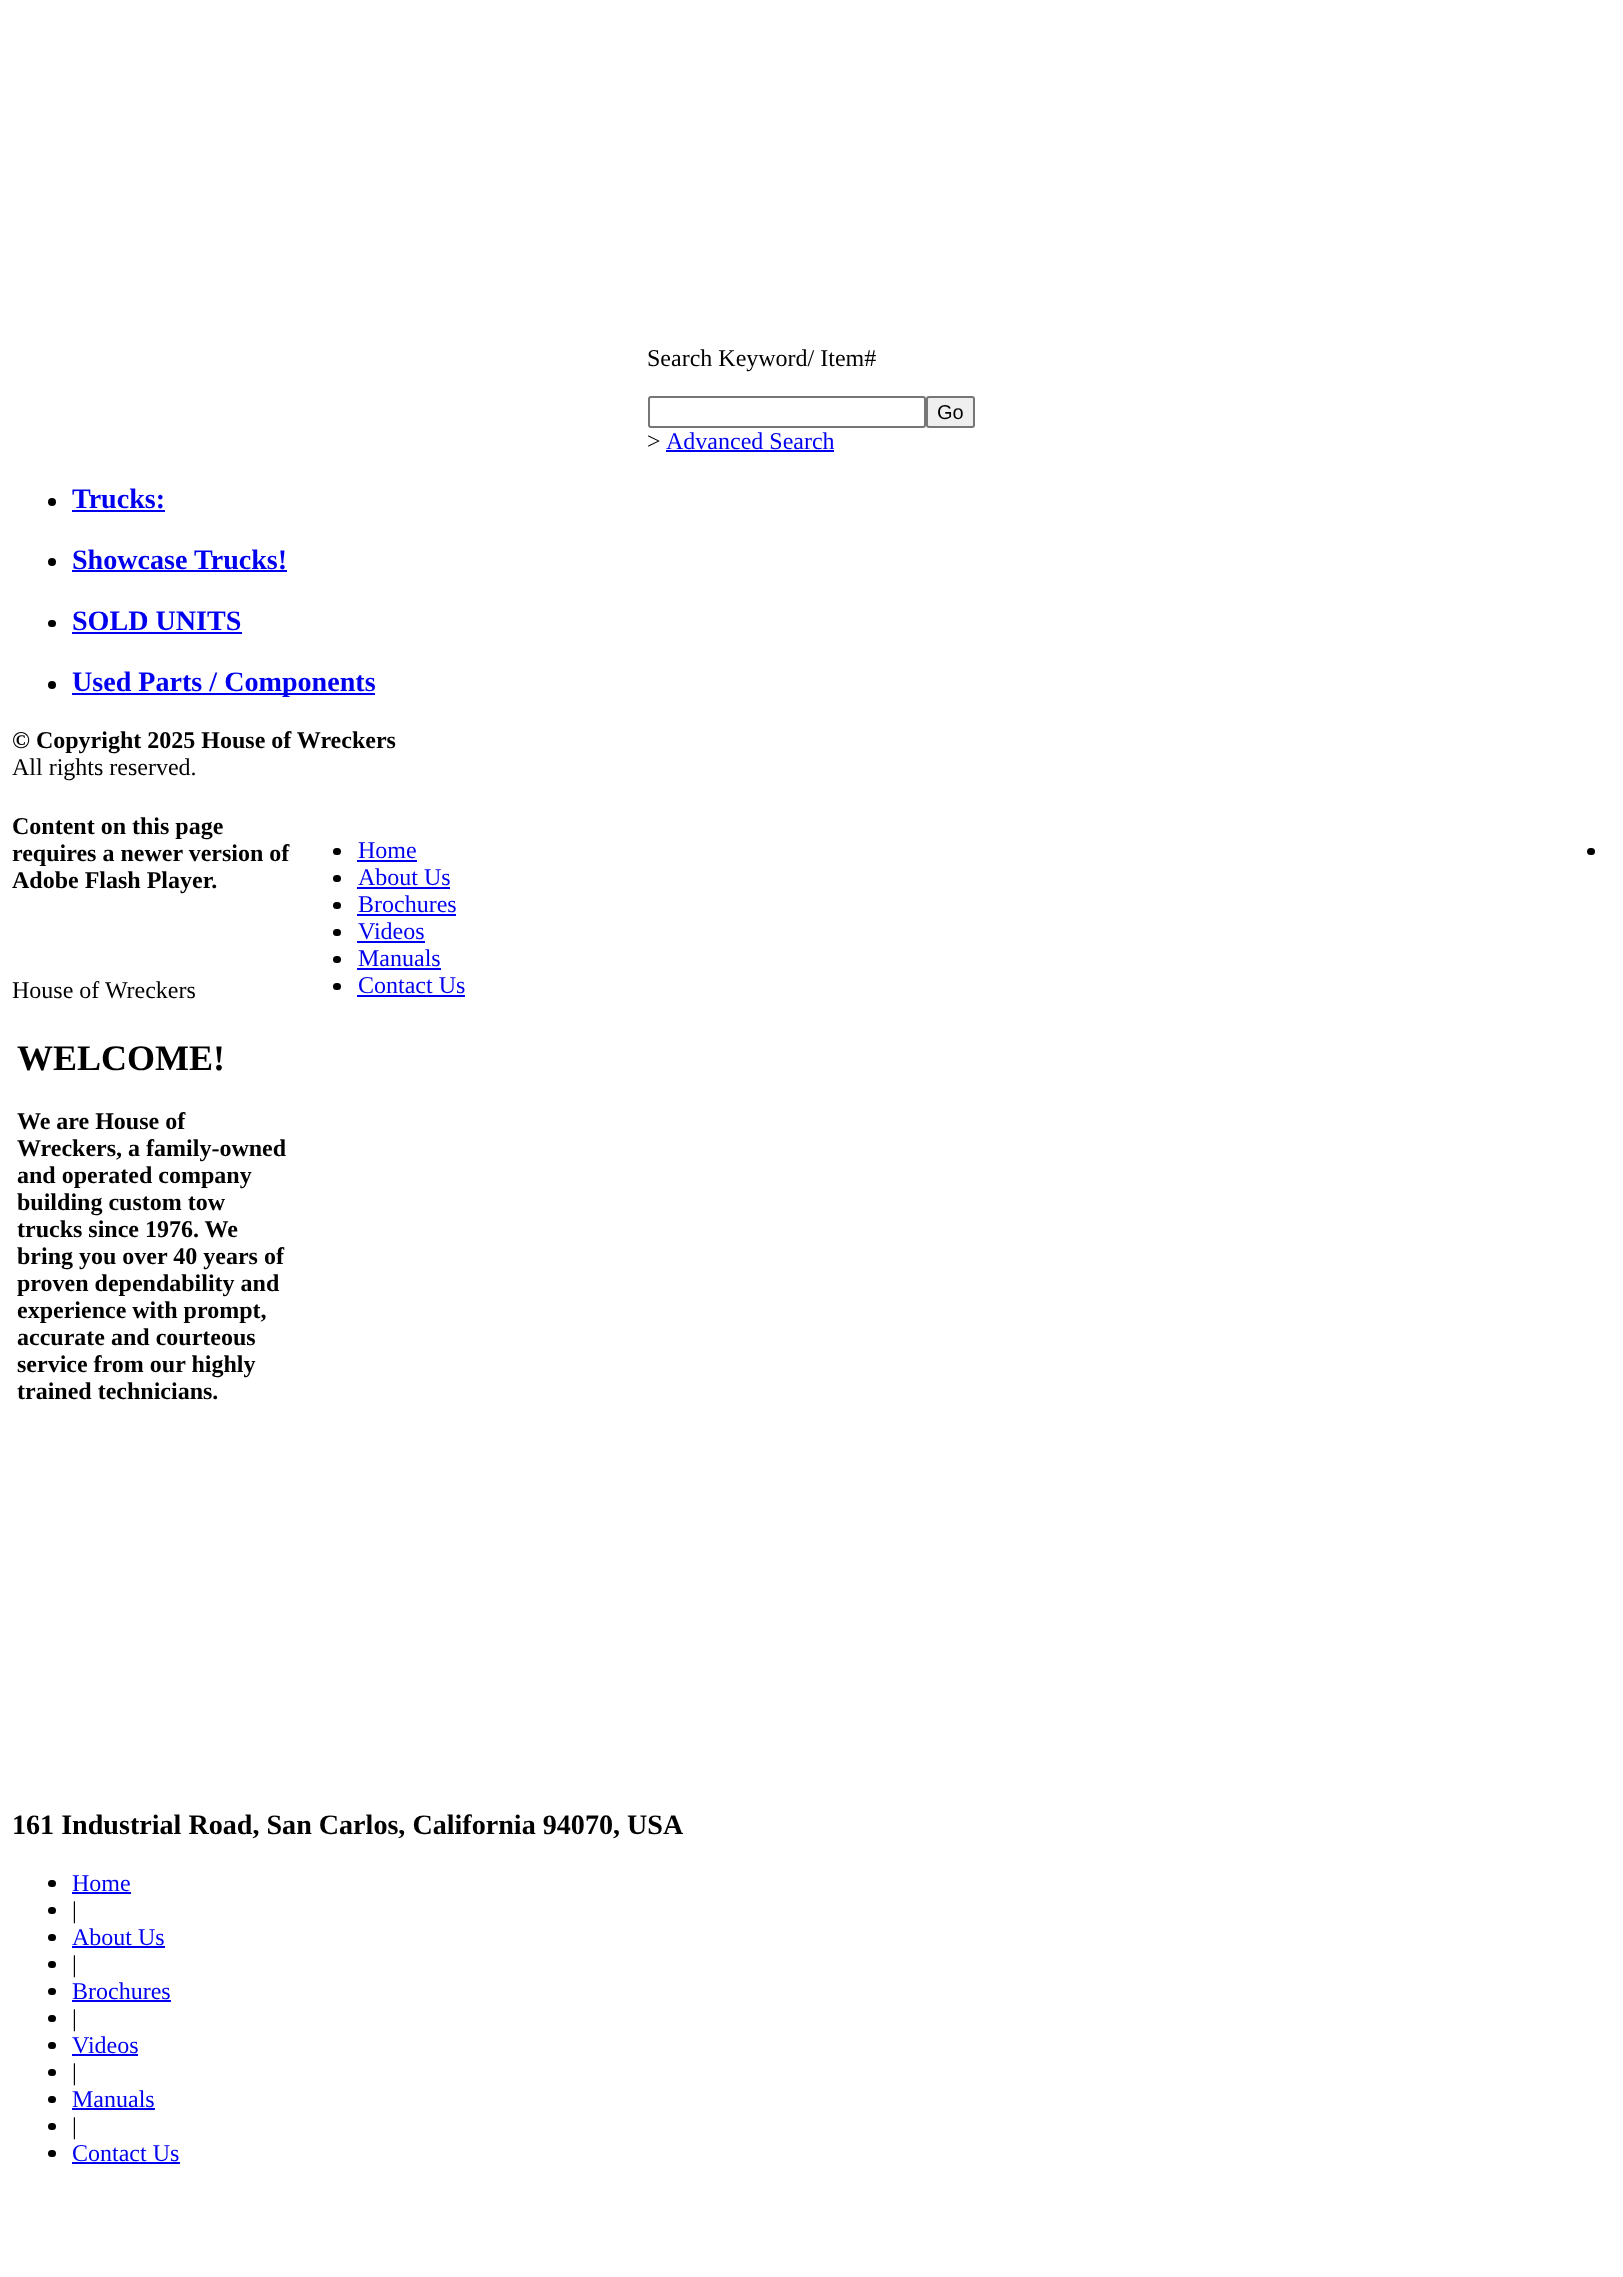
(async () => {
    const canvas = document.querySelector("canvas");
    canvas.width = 1623;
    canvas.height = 2277;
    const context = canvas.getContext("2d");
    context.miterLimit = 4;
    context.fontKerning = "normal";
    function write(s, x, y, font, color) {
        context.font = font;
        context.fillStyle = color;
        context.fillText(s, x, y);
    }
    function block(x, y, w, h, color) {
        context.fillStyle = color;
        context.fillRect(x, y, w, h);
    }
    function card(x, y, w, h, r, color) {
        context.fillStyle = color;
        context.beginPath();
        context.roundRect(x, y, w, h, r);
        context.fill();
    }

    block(0, 0, 1623, 2277, "rgb(255, 255, 255)");
    write("Search Keyword/ Item#", 647, 366, "24px Liberation Serif", "rgb(0, 0, 0)");
    context.beginPath();
    context.roundRect(649, 397, 276, 30, 2);
    context.strokeStyle = "rgb(118, 118, 118)";
    context.lineWidth = 2;
    context.stroke();
    context.fillStyle = "rgb(239, 239, 239)";
    context.beginPath();
    context.roundRect(927, 397, 47, 30, 2);
    context.fill();
    context.stroke();
    write("Go", 937, 419, "20px Liberation Sans", "rgb(0, 0, 0)");
    write(">", 647, 449, "24px Liberation Serif", "rgb(0, 0, 0)");
    write("Advanced Search", 666, 449, "24px Liberation Serif", "rgb(0, 0, 238)");
    block(666, 450, 168, 2, "rgb(0, 0, 238)");
    context.fillStyle = "rgb(0, 0, 0)";
    context.beginPath();
    context.arc(52, 502, 4, 0, Math.PI * 2);
    context.fill();
    write("Trucks:", 72, 508, "bold 28.1px Liberation Serif", "rgb(0, 0, 238)");
    block(72, 510, 93, 2, "rgb(0, 0, 238)");
    context.fillStyle = "rgb(0, 0, 0)";
    context.beginPath();
    context.arc(52, 562, 4, 0, Math.PI * 2);
    context.fill();
    write("Showcase Trucks!", 72, 569, "bold 28.1px Liberation Serif", "rgb(0, 0, 238)");
    block(72, 570, 215, 2, "rgb(0, 0, 238)");
    card(48, 620, 8, 7, 3.5, "rgb(0, 0, 0)");
    write("SOLD UNITS", 72, 630, "bold 28.1px Liberation Serif", "rgb(0, 0, 238)");
    block(72, 632, 170, 2, "rgb(0, 0, 238)");
    context.fillStyle = "rgb(0, 0, 0)";
    context.beginPath();
    context.arc(52, 685, 4, 0, Math.PI * 2);
    context.fill();
    block(72, 693, 303, 2, "rgb(0, 0, 238)");
    write("Used Parts / Components", 72, 691, "bold 28.1px Liberation Serif", "rgb(0, 0, 238)");
    write("© Copyright 2025 House of Wreckers", 12, 748, "bold 24px Liberation Serif", "rgb(0, 0, 0)");
    write("All rights reserved.", 12, 775, "24px Liberation Serif", "rgb(0, 0, 0)");
    write("Content on this page", 12, 834, "bold 24px Liberation Serif", "rgb(0, 0, 0)");
    write("requires a newer version of", 12, 861, "bold 24px Liberation Serif", "rgb(0, 0, 0)");
    write("Adobe Flash Player.", 12, 888, "bold 24px Liberation Serif", "rgb(0, 0, 0)");
    card(333, 848, 8, 7, 3.5, "rgb(0, 0, 0)");
    write("Home", 358, 858, "24px Liberation Serif", "rgb(0, 0, 238)");
    block(357, 860, 60, 2, "rgb(0, 0, 238)");
    card(333, 875, 8, 7, 3.5, "rgb(0, 0, 0)");
    write("About Us", 358, 885, "24px Liberation Serif", "rgb(0, 0, 238)");
    block(357, 887, 93, 2, "rgb(0, 0, 238)");
    card(333, 902, 8, 7, 3.5, "rgb(0, 0, 0)");
    write("Brochures", 358, 912, "24px Liberation Serif", "rgb(0, 0, 238)");
    block(357, 914, 99, 2, "rgb(0, 0, 238)");
    card(333, 929, 8, 7, 3.5, "rgb(0, 0, 0)");
    write("Videos", 358, 939, "24px Liberation Serif", "rgb(0, 0, 238)");
    block(357, 941, 68, 2, "rgb(0, 0, 238)");
    card(333, 956, 8, 7, 3.5, "rgb(0, 0, 0)");
    write("Manuals", 358, 966, "24px Liberation Serif", "rgb(0, 0, 238)");
    block(357, 968, 84, 2, "rgb(0, 0, 238)");
    card(333, 983, 8, 7, 3.5, "rgb(0, 0, 0)");
    write("Contact Us", 358, 993, "24px Liberation Serif", "rgb(0, 0, 238)");
    block(357, 995, 108, 2, "rgb(0, 0, 238)");
    card(1587, 848, 8, 7, 3.5, "rgb(0, 0, 0)");
    write("House of Wreckers", 12, 998, "24px Liberation Serif", "rgb(0, 0, 0)");
    write("WELCOME!", 17, 1070, "bold 36px Liberation Serif", "rgb(0, 0, 0)");
    write("We are House of", 17, 1129, "bold 24px Liberation Serif", "rgb(0, 0, 0)");
    write("Wreckers, a family-owned", 17, 1156, "bold 24px Liberation Serif", "rgb(0, 0, 0)");
    write("and operated company", 17, 1183, "bold 24px Liberation Serif", "rgb(0, 0, 0)");
    write("building custom tow", 17, 1210, "bold 24px Liberation Serif", "rgb(0, 0, 0)");
    write("trucks since 1976. We", 17, 1237, "bold 24px Liberation Serif", "rgb(0, 0, 0)");
    write("bring you over 40 years of", 17, 1264, "bold 24px Liberation Serif", "rgb(0, 0, 0)");
    write("proven dependability and", 17, 1291, "bold 24px Liberation Serif", "rgb(0, 0, 0)");
    write("experience with prompt,", 17, 1318, "bold 24px Liberation Serif", "rgb(0, 0, 0)");
    write("accurate and courteous", 17, 1345, "bold 24px Liberation Serif", "rgb(0, 0, 0)");
    write("service from our highly", 17, 1372, "bold 24px Liberation Serif", "rgb(0, 0, 0)");
    write("trained technicians.", 17, 1399, "bold 24px Liberation Serif", "rgb(0, 0, 0)");
    write("161 Industrial Road, San Carlos, California 94070, USA", 12, 1834, "bold 28.1px Liberation Serif", "rgb(0, 0, 0)");
    card(48, 1880, 8, 7, 3.5, "rgb(0, 0, 0)");
    write("Home", 72, 1891, "24px Liberation Serif", "rgb(0, 0, 238)");
    block(72, 1892, 59, 2, "rgb(0, 0, 238)");
    card(48, 1907, 8, 7, 3.5, "rgb(0, 0, 0)");
    write("|", 72, 1918, "24px Liberation Serif", "rgb(0, 0, 0)");
    card(48, 1934, 8, 7, 3.5, "rgb(0, 0, 0)");
    write("About Us", 72, 1945, "24px Liberation Serif", "rgb(0, 0, 238)");
    block(72, 1946, 93, 2, "rgb(0, 0, 238)");
    card(48, 1961, 8, 7, 3.5, "rgb(0, 0, 0)");
    write("|", 72, 1972, "24px Liberation Serif", "rgb(0, 0, 0)");
    card(48, 1988, 8, 7, 3.5, "rgb(0, 0, 0)");
    write("Brochures", 72, 1999, "24px Liberation Serif", "rgb(0, 0, 238)");
    block(72, 2000, 99, 2, "rgb(0, 0, 238)");
    card(48, 2015, 8, 7, 3.5, "rgb(0, 0, 0)");
    write("|", 72, 2026, "24px Liberation Serif", "rgb(0, 0, 0)");
    card(48, 2042, 8, 7, 3.5, "rgb(0, 0, 0)");
    write("Videos", 72, 2053, "24px Liberation Serif", "rgb(0, 0, 238)");
    block(72, 2054, 66, 2, "rgb(0, 0, 238)");
    card(48, 2069, 8, 7, 3.5, "rgb(0, 0, 0)");
    write("|", 72, 2080, "24px Liberation Serif", "rgb(0, 0, 0)");
    card(48, 2096, 8, 7, 3.5, "rgb(0, 0, 0)");
    write("Manuals", 72, 2107, "24px Liberation Serif", "rgb(0, 0, 238)");
    block(72, 2108, 83, 2, "rgb(0, 0, 238)");
    card(48, 2123, 8, 7, 3.5, "rgb(0, 0, 0)");
    write("|", 72, 2134, "24px Liberation Serif", "rgb(0, 0, 0)");
    card(48, 2150, 8, 7, 3.5, "rgb(0, 0, 0)");
    write("Contact Us", 72, 2161, "24px Liberation Serif", "rgb(0, 0, 238)");
    block(72, 2162, 108, 2, "rgb(0, 0, 238)");
})();
